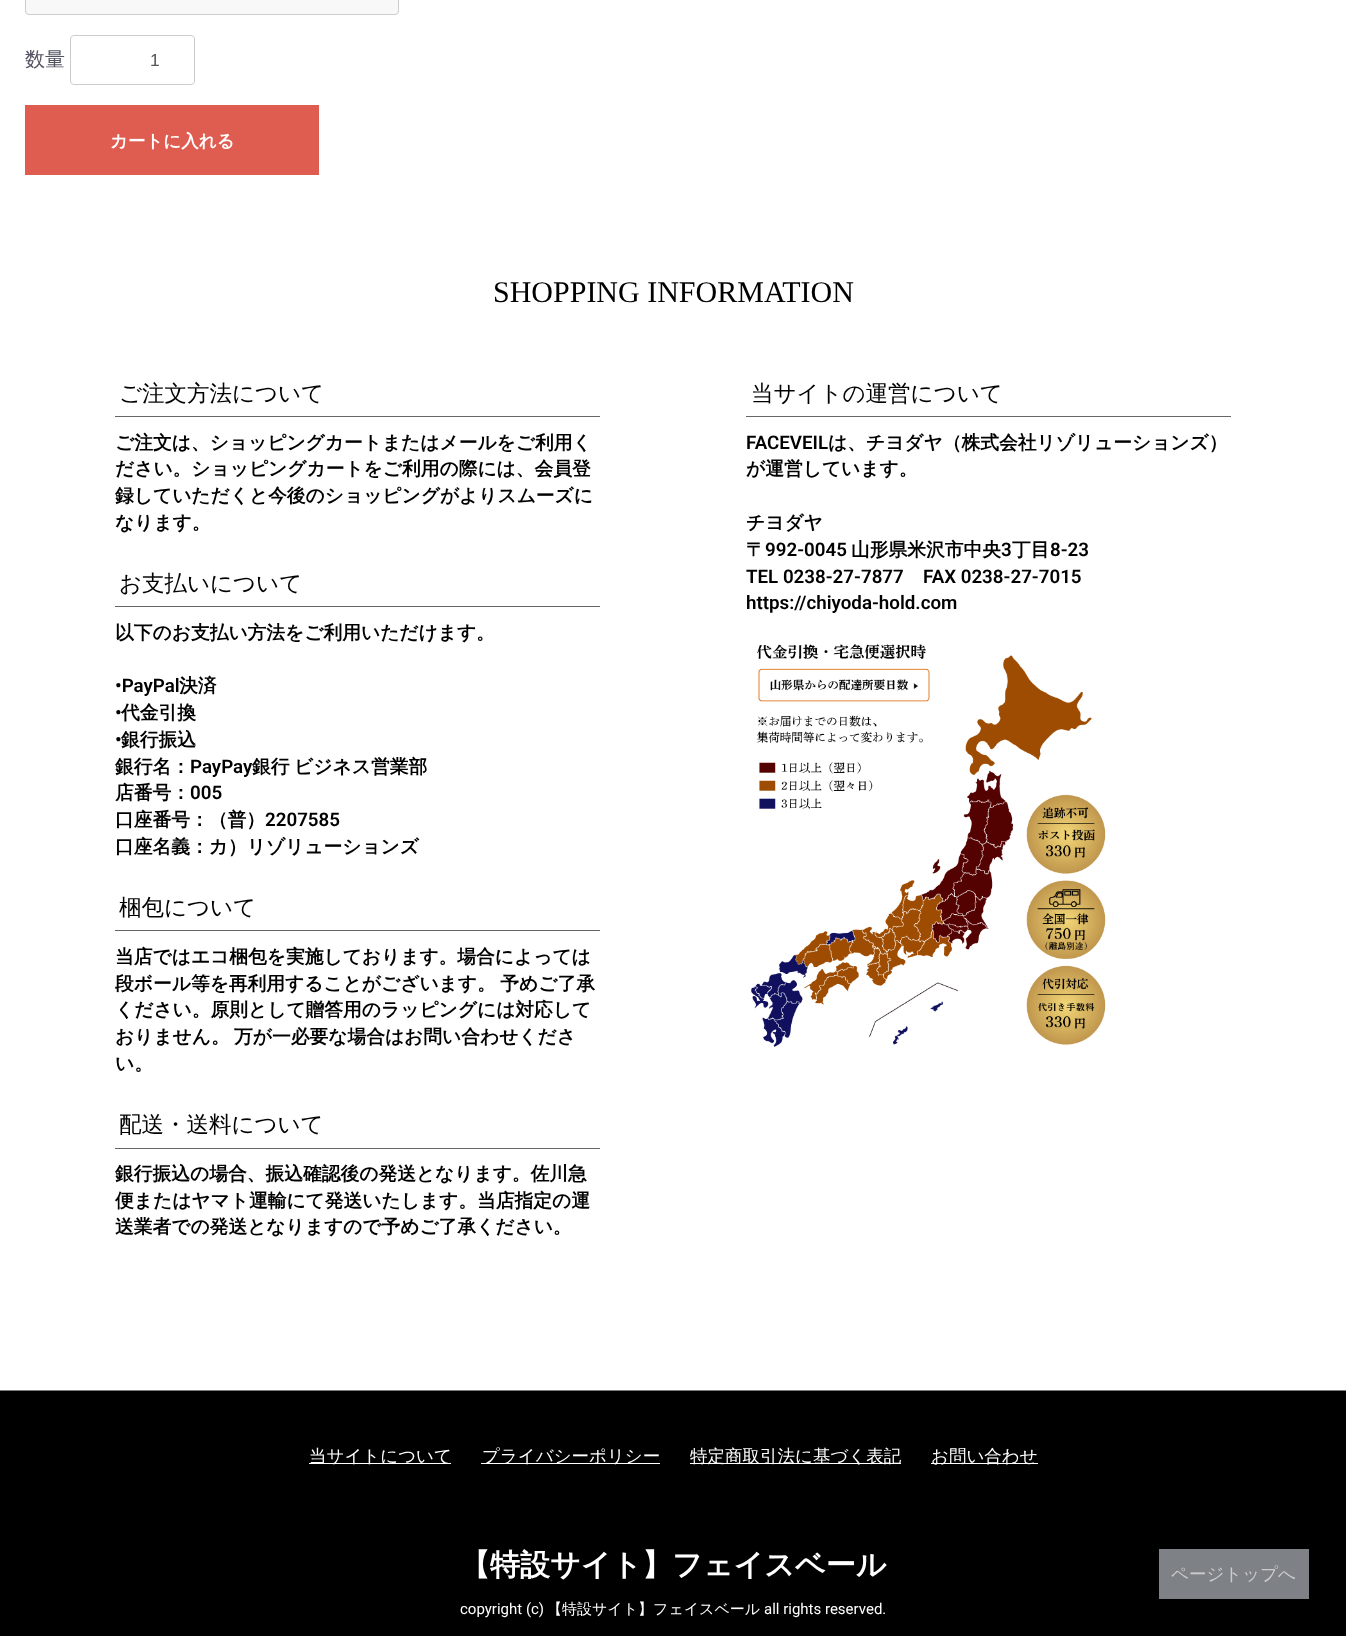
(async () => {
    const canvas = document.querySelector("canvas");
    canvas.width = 1346;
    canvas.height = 1636;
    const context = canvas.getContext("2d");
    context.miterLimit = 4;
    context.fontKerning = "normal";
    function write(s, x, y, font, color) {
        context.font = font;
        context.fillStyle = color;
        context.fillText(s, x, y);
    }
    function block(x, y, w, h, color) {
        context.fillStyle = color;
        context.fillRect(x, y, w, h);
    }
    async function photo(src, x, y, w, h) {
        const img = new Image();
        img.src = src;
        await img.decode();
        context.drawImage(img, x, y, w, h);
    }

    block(0, 0, 1346, 1636, "rgb(255, 255, 255)");
    context.fillStyle = "rgb(248, 248, 248)";
    context.beginPath();
    context.roundRect(25.5, -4.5, 373, 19, 3.5);
    context.fill();
    context.strokeStyle = "rgb(204, 204, 204)";
    context.stroke();
    write("数量", 25, 66, "500 20px WenQuanYi Zen Hei", "rgb(82, 82, 99)");
    context.beginPath();
    context.roundRect(70.5, 35.5, 124, 49, 3.5);
    context.stroke();
    write("1", 150, 66, "17.5px Liberation Sans", "rgb(85, 85, 85)");
    block(25, 105, 294, 70, "rgb(222, 93, 80)");
    write("カートに入れる", 110, 147, "bold 17.5px WenQuanYi Zen Hei", "rgb(255, 255, 255)");
    write("SHOPPING INFORMATION", 493, 302, "30px Liberation Serif", "rgb(0, 0, 0)");
    block(115, 416, 485, 1, "rgb(102, 102, 102)");
    write("ご注文方法について", 119, 401, "500 22.5px WenQuanYi Zen Hei", "rgb(0, 0, 0)");
    write("ご注文は、ショッピングカートまたはメールをご利用く", 115, 449, "bold 18.75px WenQuanYi Zen Hei", "rgb(0, 0, 0)");
    write("ださい。ショッピングカートをご利用の際には、会員登", 115, 475, "bold 18.75px WenQuanYi Zen Hei", "rgb(0, 0, 0)");
    write("録していただくと今後のショッピングがよりスムーズに", 115, 502, "bold 18.75px WenQuanYi Zen Hei", "rgb(0, 0, 0)");
    write("なります。", 115, 529, "bold 18.75px WenQuanYi Zen Hei", "rgb(0, 0, 0)");
    block(115, 606, 485, 1, "rgb(102, 102, 102)");
    write("お支払いについて", 119, 591, "500 22.5px WenQuanYi Zen Hei", "rgb(0, 0, 0)");
    write("以下のお支払い方法をご利用いただけます。", 115, 639, "bold 18.75px WenQuanYi Zen Hei", "rgb(0, 0, 0)");
    write("•PayPal", 115, 692, "600 18.75px Roboto", "rgb(0, 0, 0)");
    write("決済", 179, 692, "bold 18.75px WenQuanYi Zen Hei", "rgb(0, 0, 0)");
    write("•", 115, 719, "600 18.75px Roboto", "rgb(0, 0, 0)");
    write("代金引換", 121, 719, "bold 18.75px WenQuanYi Zen Hei", "rgb(0, 0, 0)");
    write("•", 115, 746, "600 18.75px Roboto", "rgb(0, 0, 0)");
    write("銀行振込", 121, 746, "bold 18.75px WenQuanYi Zen Hei", "rgb(0, 0, 0)");
    write("銀行名：", 115, 773, "bold 18.75px WenQuanYi Zen Hei", "rgb(0, 0, 0)");
    write("PayPay", 190, 773, "600 18.75px Roboto", "rgb(0, 0, 0)");
    context.wordSpacing = "-1px";
    write("銀行 ビジネス営業部", 252, 773, "bold 18.75px WenQuanYi Zen Hei", "rgb(0, 0, 0)");
    context.wordSpacing = "0px";
    write("店番号：", 115, 799, "bold 18.75px WenQuanYi Zen Hei", "rgb(0, 0, 0)");
    write("005", 190, 799, "600 18.75px Roboto", "rgb(0, 0, 0)");
    write("口座番号：（普）", 115, 826, "bold 18.75px WenQuanYi Zen Hei", "rgb(0, 0, 0)");
    write("2207585", 265, 826, "600 18.75px Roboto", "rgb(0, 0, 0)");
    write("口座名義：カ）リゾリューションズ", 115, 853, "bold 18.75px WenQuanYi Zen Hei", "rgb(0, 0, 0)");
    block(115, 930, 485, 1, "rgb(102, 102, 102)");
    write("梱包について", 119, 915, "500 22.5px WenQuanYi Zen Hei", "rgb(0, 0, 0)");
    write("当店ではエコ梱包を実施しております。場合によっては", 115, 963, "bold 18.75px WenQuanYi Zen Hei", "rgb(0, 0, 0)");
    context.wordSpacing = "-1px";
    write("段ボール等を再利用することがございます。 予めご了承", 115, 990, "bold 18.75px WenQuanYi Zen Hei", "rgb(0, 0, 0)");
    context.wordSpacing = "0px";
    write("ください。原則として贈答用のラッピングには対応して", 115, 1016, "bold 18.75px WenQuanYi Zen Hei", "rgb(0, 0, 0)");
    write("おりません。", 115, 1043, "bold 18.75px WenQuanYi Zen Hei", "rgb(0, 0, 0)");
    write("万が一必要な場合はお問い合わせくださ", 234, 1043, "bold 18.75px WenQuanYi Zen Hei", "rgb(0, 0, 0)");
    write("い。", 115, 1070, "bold 18.75px WenQuanYi Zen Hei", "rgb(0, 0, 0)");
    block(115, 1148, 485, 1, "rgb(102, 102, 102)");
    write("配送・送料について", 119, 1132, "500 22.5px WenQuanYi Zen Hei", "rgb(0, 0, 0)");
    write("銀行振込の場合、振込確認後の発送となります。佐川急", 115, 1180, "bold 18.75px WenQuanYi Zen Hei", "rgb(0, 0, 0)");
    write("便またはヤマト運輸にて発送いたします。当店指定の運", 115, 1207, "bold 18.75px WenQuanYi Zen Hei", "rgb(0, 0, 0)");
    write("送業者での発送となりますので予めご了承ください。", 115, 1233, "bold 18.75px WenQuanYi Zen Hei", "rgb(0, 0, 0)");
    block(746, 416, 485, 1, "rgb(102, 102, 102)");
    write("当サイトの運営について", 751, 401, "500 22.5px WenQuanYi Zen Hei", "rgb(0, 0, 0)");
    write("FACEVEIL", 746, 449, "600 18.75px Roboto", "rgb(0, 0, 0)");
    write("は、チヨダヤ（株式会社リゾリューションズ）", 828, 449, "bold 18.75px WenQuanYi Zen Hei", "rgb(0, 0, 0)");
    write("が運営しています。", 746, 475, "bold 18.75px WenQuanYi Zen Hei", "rgb(0, 0, 0)");
    write("チヨダヤ", 746, 529, "bold 18.75px WenQuanYi Zen Hei", "rgb(0, 0, 0)");
    write("〒", 746, 556, "bold 18.75px WenQuanYi Zen Hei", "rgb(0, 0, 0)");
    write("992-0045", 765, 556, "600 18.75px Roboto", "rgb(0, 0, 0)");
    write("山形県米沢市中央", 851, 556, "bold 18.75px WenQuanYi Zen Hei", "rgb(0, 0, 0)");
    write("3", 1001, 556, "600 18.75px Roboto", "rgb(0, 0, 0)");
    write("丁目", 1012, 556, "bold 18.75px WenQuanYi Zen Hei", "rgb(0, 0, 0)");
    write("8-23", 1050, 556, "600 18.75px Roboto", "rgb(0, 0, 0)");
    write("TEL 0238-27-7877", 746, 583, "600 18.75px Roboto", "rgb(0, 0, 0)");
    write("FAX 0238-27-7015", 923, 583, "600 18.75px Roboto", "rgb(0, 0, 0)");
    write("https://chiyoda-hold.com", 746, 609, "600 18.75px Roboto", "rgb(0, 0, 0)");
    await photo("media/1.png", 751, 644, 355, 403);
    block(0, 1391, 1346, 245, "rgb(0, 0, 0)");
    block(0, 1390, 1346, 1, "rgb(125, 125, 125)");
    block(309, 1463, 142, 1, "rgb(255, 255, 255)");
    write("当サイトについて", 309, 1462, "500 17.5px WenQuanYi Zen Hei", "rgb(255, 255, 255)");
    block(481, 1463, 179, 1, "rgb(255, 255, 255)");
    write("プライバシーポリシー", 482, 1462, "500 17.5px WenQuanYi Zen Hei", "rgb(255, 255, 255)");
    block(690, 1463, 211, 1, "rgb(255, 255, 255)");
    write("特定商取引法に基づく表記", 690, 1462, "500 17.5px WenQuanYi Zen Hei", "rgb(255, 255, 255)");
    block(931, 1463, 107, 1, "rgb(255, 255, 255)");
    write("お問い合わせ", 931, 1462, "500 17.5px WenQuanYi Zen Hei", "rgb(255, 255, 255)");
    write("【特設サイト】フェイスベール", 460, 1575, "bold 30px WenQuanYi Zen Hei", "rgb(255, 255, 255)");
    write("copyright (c)", 460, 1614, "15px Roboto", "rgb(255, 255, 255)");
    write("【特設サイト】フェイスベール", 547, 1614, "500 15px WenQuanYi Zen Hei", "rgb(255, 255, 255)");
    write("all rights reserved.", 764, 1614, "15px Roboto", "rgb(255, 255, 255)");
    block(1159, 1549, 150, 50, "rgb(126, 130, 135)");
    write("ページトップへ", 1171, 1580, "500 17.5px WenQuanYi Zen Hei", "rgb(204, 204, 204)");
})();
